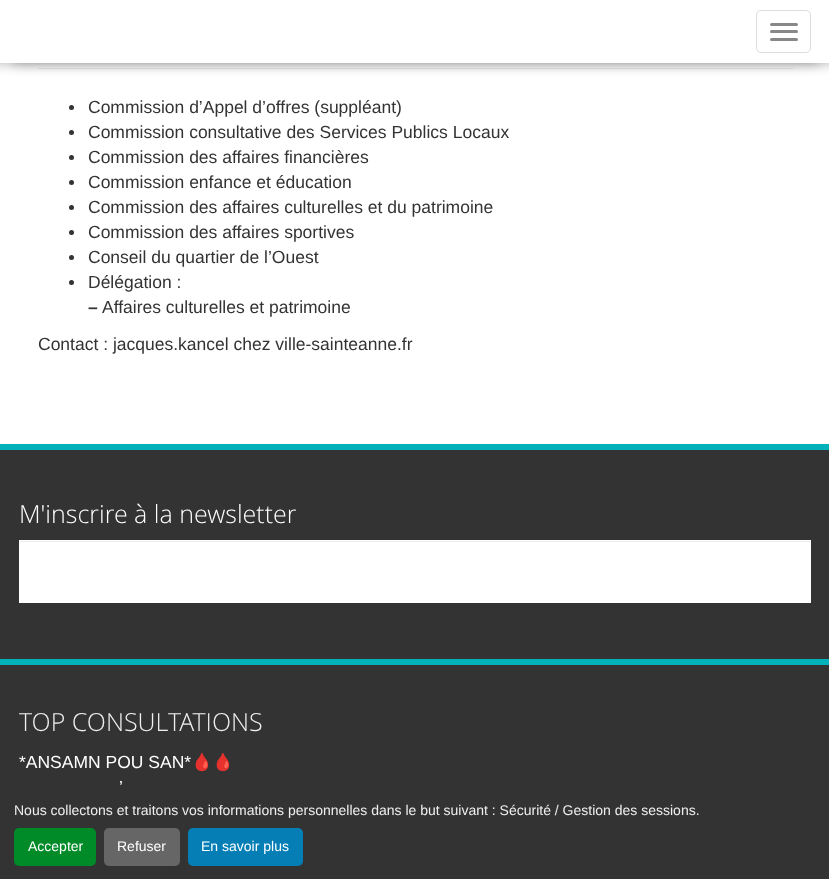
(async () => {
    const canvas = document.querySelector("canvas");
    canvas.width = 829;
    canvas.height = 879;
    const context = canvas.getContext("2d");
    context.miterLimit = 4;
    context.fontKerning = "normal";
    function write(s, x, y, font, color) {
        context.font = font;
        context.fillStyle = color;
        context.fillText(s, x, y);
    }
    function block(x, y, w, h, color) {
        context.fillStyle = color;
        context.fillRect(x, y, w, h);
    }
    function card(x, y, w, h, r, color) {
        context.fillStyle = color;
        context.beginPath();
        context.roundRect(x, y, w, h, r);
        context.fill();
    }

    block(0, 0, 829, 879, "rgb(255, 255, 255)");
    block(38, 68, 755, 1, "rgb(238, 238, 238)");
    context.save();
    context.beginPath();
    context.moveTo(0, 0);
    context.lineTo(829, 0);
    context.lineTo(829, 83);
    context.lineTo(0, 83);
    context.closePath();
    context.moveTo(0, 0);
    context.lineTo(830, 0);
    context.lineTo(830, 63);
    context.lineTo(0, 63);
    context.closePath();
    context.clip("evenodd");
    context.fillStyle = "rgba(0, 0, 0, 0.25)";
    context.filter = "blur(6px)";
    context.beginPath();
    context.rect(-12, 1, 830, 63);
    context.fill();
    context.filter = "none";
    context.filter = "blur(6px)";
    context.beginPath();
    context.rect(13, 1, 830, 63);
    context.fill();
    context.filter = "none";
    context.restore();
    block(0, 62, 829, 1, "rgba(255, 255, 255, 0.85)");
    context.beginPath();
    context.roundRect(756.5, 10.5, 54, 42, 4.5);
    context.strokeStyle = "rgb(221, 221, 221)";
    context.stroke();
    card(770, 23, 28, 3, 1.5, "rgb(136, 136, 136)");
    card(770, 30, 28, 3, 1.5, "rgb(136, 136, 136)");
    card(770, 38, 28, 3, 1.5, "rgb(136, 136, 136)");
    context.fillStyle = "rgb(51, 51, 51)";
    context.beginPath();
    context.arc(71.5, 107.5, 2.5, 0, Math.PI * 2);
    context.fill();
    write("Commission d’Appel d’offres (suppléant)", 88, 113, "17.5px Liberation Sans", "rgb(51, 51, 51)");
    context.beginPath();
    context.arc(71.5, 132.5, 2.5, 0, Math.PI * 2);
    context.fill();
    write("Commission consultative des Services Publics Locaux", 88, 138, "17.5px Liberation Sans", "rgb(51, 51, 51)");
    context.beginPath();
    context.arc(71.5, 157.5, 2.5, 0, Math.PI * 2);
    context.fill();
    write("Commission des affaires financières", 88, 163, "17.5px Liberation Sans", "rgb(51, 51, 51)");
    context.beginPath();
    context.arc(71.5, 182.5, 2.5, 0, Math.PI * 2);
    context.fill();
    write("Commission enfance et éducation", 88, 188, "17.5px Liberation Sans", "rgb(51, 51, 51)");
    context.beginPath();
    context.arc(71.5, 207.5, 2.5, 0, Math.PI * 2);
    context.fill();
    write("Commission des affaires culturelles et du patrimoine", 88, 213, "17.5px Liberation Sans", "rgb(51, 51, 51)");
    context.beginPath();
    context.arc(71.5, 232.5, 2.5, 0, Math.PI * 2);
    context.fill();
    write("Commission des affaires sportives", 88, 238, "17.5px Liberation Sans", "rgb(51, 51, 51)");
    context.beginPath();
    context.arc(71.5, 257.5, 2.5, 0, Math.PI * 2);
    context.fill();
    write("Conseil du quartier de l’Ouest", 88, 263, "17.5px Liberation Sans", "rgb(51, 51, 51)");
    context.beginPath();
    context.arc(71.5, 282.5, 2.5, 0, Math.PI * 2);
    context.fill();
    write("Délégation :", 88, 288, "17.5px Liberation Sans", "rgb(51, 51, 51)");
    write("–", 88, 313, "bold 17.5px Liberation Sans", "rgb(51, 51, 51)");
    write("Affaires culturelles et patrimoine", 102, 313, "17.5px Liberation Sans", "rgb(51, 51, 51)");
    write("Contact : jacques.kancel chez ville-sainteanne.fr", 38, 350, "17.5px Liberation Sans", "rgb(51, 51, 51)");
    block(0, 450, 829, 209, "rgb(51, 51, 51)");
    block(0, 444, 829, 6, "rgb(3, 177, 187)");
    block(0, 659, 829, 6, "rgb(3, 177, 187)");
    write("M'inscrire à la newsletter", 19, 523, "300 25px Open Sans", "rgb(255, 255, 255)");
    block(19, 540, 792, 63, "rgb(255, 255, 255)");
    block(20, 541, 790, 1, "rgb(236, 236, 236)");
    block(0, 665, 829, 214, "rgb(51, 51, 51)");
    write("TOP CONSULTATIONS", 19, 731, "300 25px Open Sans", "rgb(239, 239, 239)");
    write("*ANSAMN POU SAN*", 19, 768, "17.5px Liberation Sans", "rgb(255, 255, 255)");
    write("🩸🩸", 191, 768, "17.5px Noto Color Emoji", "rgb(255, 255, 255)");
    write("’", 119, 793, "17.5px Liberation Sans", "rgb(255, 255, 255)");
    write("Nous collectons et traitons vos informations personnelles dans le but suivant : Sécurité / Gestion des sessions.", 14, 815, "14px Liberation Sans", "rgb(239, 239, 239)");
    card(14, 828, 82, 38, 5, "rgb(0, 138, 40)");
    write("Accepter", 28, 851, "14px Liberation Sans", "rgb(255, 255, 255)");
    card(104, 828, 76, 38, 5, "rgb(102, 102, 102)");
    write("Refuser", 117, 851, "14px Liberation Sans", "rgb(255, 255, 255)");
    card(188, 828, 115, 38, 5, "rgb(5, 126, 182)");
    write("En savoir plus", 201, 851, "14px Liberation Sans", "rgb(255, 255, 255)");
})();
